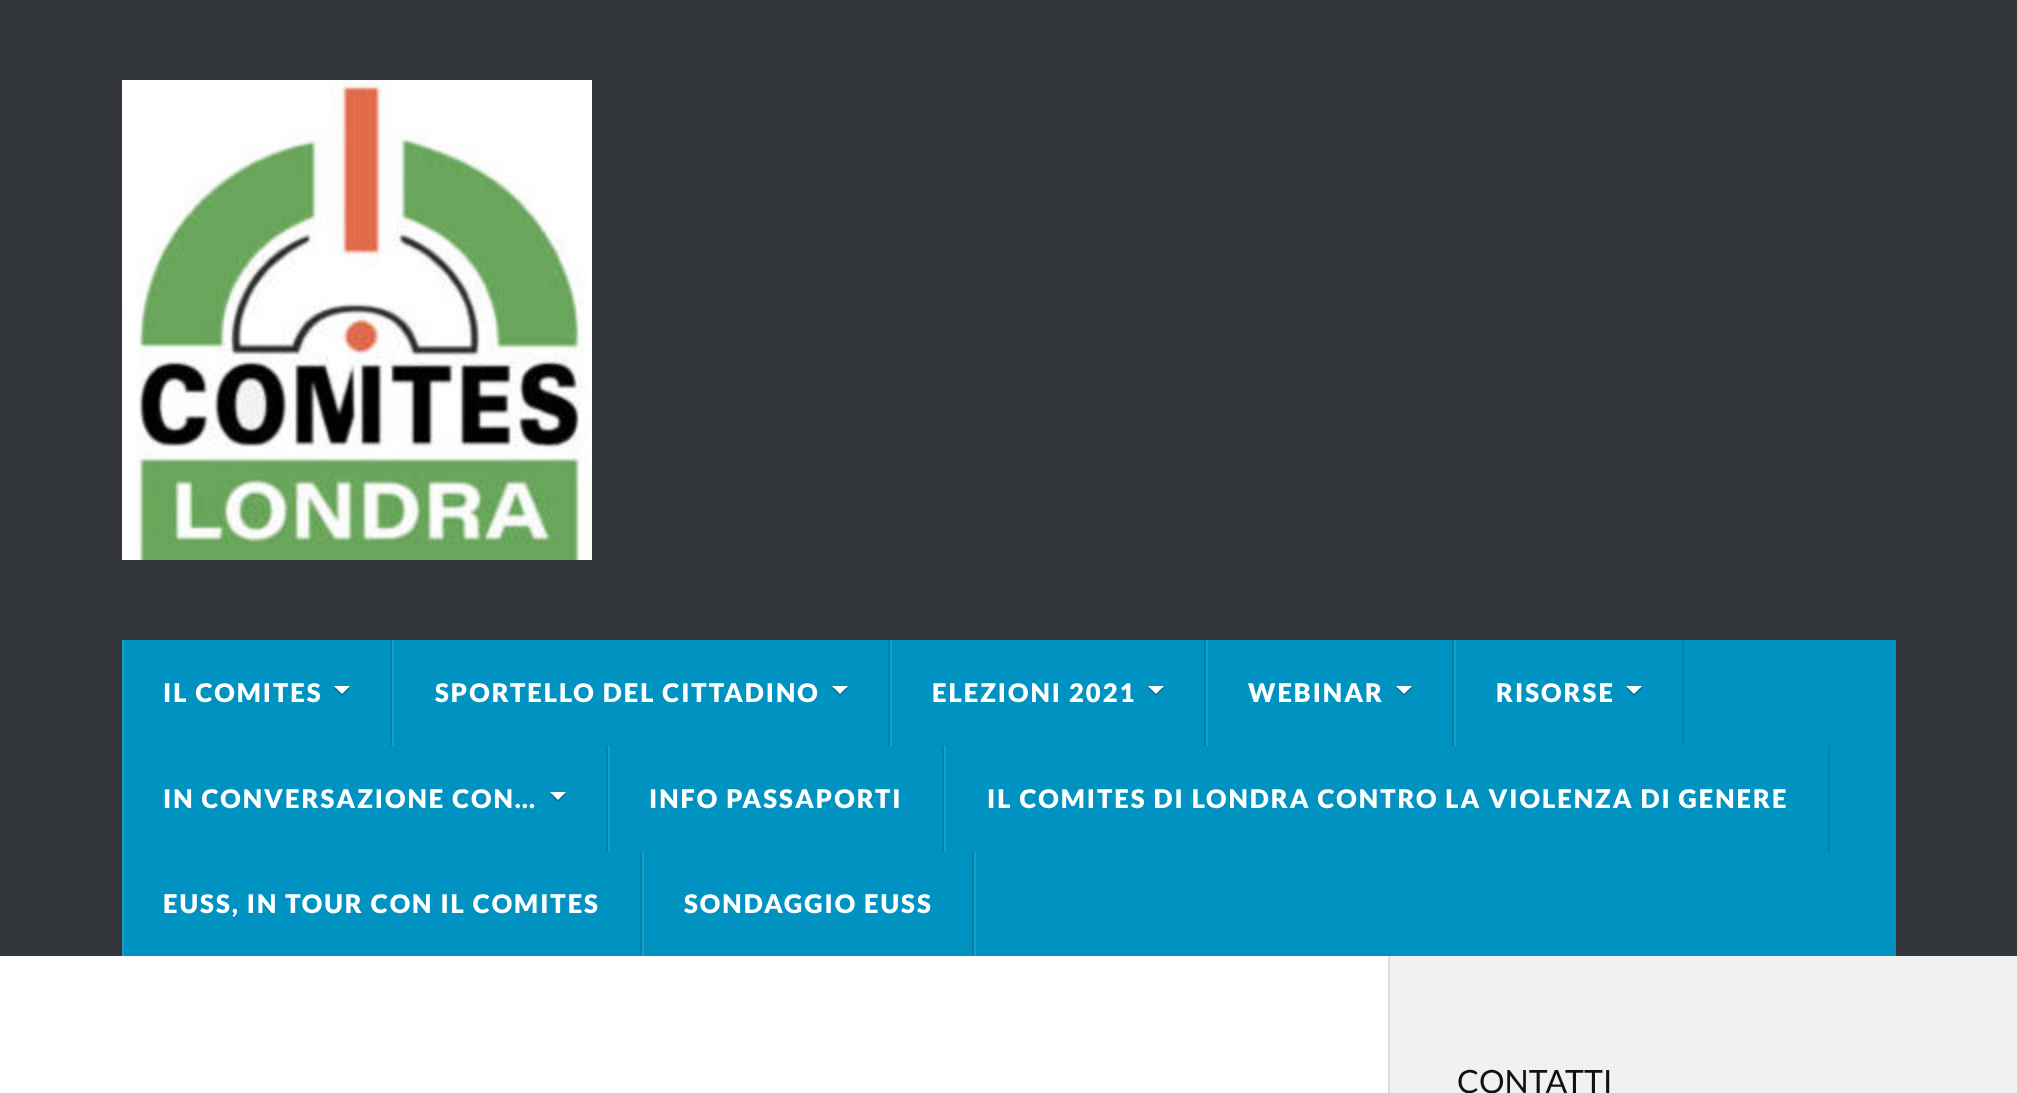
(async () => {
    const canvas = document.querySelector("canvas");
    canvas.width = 2017;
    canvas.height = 1093;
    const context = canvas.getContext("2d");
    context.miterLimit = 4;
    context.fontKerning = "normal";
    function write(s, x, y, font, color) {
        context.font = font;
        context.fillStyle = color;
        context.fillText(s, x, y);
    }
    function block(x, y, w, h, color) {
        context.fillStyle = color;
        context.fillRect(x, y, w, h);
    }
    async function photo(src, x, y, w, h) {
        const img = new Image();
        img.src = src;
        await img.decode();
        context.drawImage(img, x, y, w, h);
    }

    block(0, 0, 2017, 1093, "rgb(241, 241, 241)");
    block(0, 0, 2017, 956, "rgb(51, 54, 59)");
    await photo("media/1.png", 122, 80, 470, 480);
    block(124, 640, 1772, 316, "rgb(0, 147, 194)");
    block(390, 640, 2, 106, "rgb(0, 132, 175)");
    block(122, 640, 2, 316, "rgb(26, 158, 200)");
    context.letterSpacing = "2px";
    write("IL COMITES", 163, 702, "900 25.6px Lato", "rgb(255, 255, 255)");
    context.fillStyle = "rgb(0, 110, 146)";
    context.beginPath();
    context.moveTo(334, 688);
    context.lineTo(350, 688);
    context.lineTo(342, 696);
    context.closePath();
    context.fill();
    context.fillStyle = "rgb(255, 255, 255)";
    context.beginPath();
    context.moveTo(334, 686);
    context.lineTo(350, 686);
    context.lineTo(342, 694);
    context.closePath();
    context.fill();
    block(888, 640, 2, 106, "rgb(0, 132, 175)");
    block(392, 640, 2, 106, "rgb(26, 158, 200)");
    write("SPORTELLO DEL CITTADINO", 435, 702, "900 25.6px Lato", "rgb(255, 255, 255)");
    context.fillStyle = "rgb(0, 110, 146)";
    context.beginPath();
    context.moveTo(832, 688);
    context.lineTo(848, 688);
    context.lineTo(840, 696);
    context.closePath();
    context.fill();
    context.fillStyle = "rgb(255, 255, 255)";
    context.beginPath();
    context.moveTo(832, 686);
    context.lineTo(848, 686);
    context.lineTo(840, 694);
    context.closePath();
    context.fill();
    block(1204, 640, 2, 106, "rgb(0, 132, 175)");
    block(890, 640, 2, 106, "rgb(26, 158, 200)");
    write("ELEZIONI 2021", 932, 702, "900 25.6px Lato", "rgb(255, 255, 255)");
    context.fillStyle = "rgb(0, 110, 146)";
    context.beginPath();
    context.moveTo(1148, 688);
    context.lineTo(1164, 688);
    context.lineTo(1156, 696);
    context.closePath();
    context.fill();
    context.fillStyle = "rgb(255, 255, 255)";
    context.beginPath();
    context.moveTo(1148, 686);
    context.lineTo(1164, 686);
    context.lineTo(1156, 694);
    context.closePath();
    context.fill();
    block(1452, 640, 2, 106, "rgb(0, 132, 175)");
    block(1206, 640, 2, 106, "rgb(26, 158, 200)");
    write("WEBINAR", 1248, 702, "900 25.6px Lato", "rgb(255, 255, 255)");
    context.fillStyle = "rgb(0, 110, 146)";
    context.beginPath();
    context.moveTo(1396, 688);
    context.lineTo(1412, 688);
    context.lineTo(1404, 696);
    context.closePath();
    context.fill();
    context.fillStyle = "rgb(255, 255, 255)";
    context.beginPath();
    context.moveTo(1396, 686);
    context.lineTo(1412, 686);
    context.lineTo(1404, 694);
    context.closePath();
    context.fill();
    block(1682, 640, 2, 106, "rgb(0, 132, 175)");
    block(1454, 640, 2, 106, "rgb(26, 158, 200)");
    write("RISORSE", 1496, 702, "900 25.6px Lato", "rgb(255, 255, 255)");
    context.fillStyle = "rgb(0, 110, 146)";
    context.beginPath();
    context.moveTo(1626, 688);
    context.lineTo(1642, 688);
    context.lineTo(1634, 696);
    context.closePath();
    context.fill();
    context.fillStyle = "rgb(255, 255, 255)";
    context.beginPath();
    context.moveTo(1626, 686);
    context.lineTo(1642, 686);
    context.lineTo(1634, 694);
    context.closePath();
    context.fill();
    block(606, 746, 2, 106, "rgb(0, 132, 175)");
    write("IN CONVERSAZIONE CON…", 163, 808, "900 25.6px Lato", "rgb(255, 255, 255)");
    context.fillStyle = "rgb(0, 110, 146)";
    context.beginPath();
    context.moveTo(550, 794);
    context.lineTo(566, 794);
    context.lineTo(558, 802);
    context.closePath();
    context.fill();
    context.fillStyle = "rgb(255, 255, 255)";
    context.beginPath();
    context.moveTo(550, 792);
    context.lineTo(566, 792);
    context.lineTo(558, 800);
    context.closePath();
    context.fill();
    block(942, 746, 2, 106, "rgb(0, 132, 175)");
    block(608, 746, 2, 106, "rgb(26, 158, 200)");
    write("INFO PASSAPORTI", 649, 808, "900 25.6px Lato", "rgb(255, 255, 255)");
    block(1828, 746, 2, 106, "rgb(0, 132, 175)");
    block(944, 746, 2, 106, "rgb(26, 158, 200)");
    write("IL COMITES DI LONDRA CONTRO LA VIOLENZA DI GENERE", 987, 808, "900 25.6px Lato", "rgb(255, 255, 255)");
    block(640, 852, 2, 104, "rgb(0, 132, 175)");
    write("EUSS, IN TOUR CON IL COMITES", 163, 913, "900 25.6px Lato", "rgb(255, 255, 255)");
    block(972, 852, 2, 104, "rgb(0, 132, 175)");
    block(642, 852, 2, 104, "rgb(26, 158, 200)");
    write("SONDAGGIO EUSS", 684, 913, "900 25.6px Lato", "rgb(255, 255, 255)");
    block(974, 852, 2, 104, "rgb(26, 158, 200)");
    block(0, 956, 1388, 137, "rgb(255, 255, 255)");
    block(1388, 956, 2, 137, "rgb(221, 221, 221)");
    context.letterSpacing = "0px";
    write("CONTATTI", 1457, 1093, "32px Lato", "rgb(17, 17, 17)");
})();
